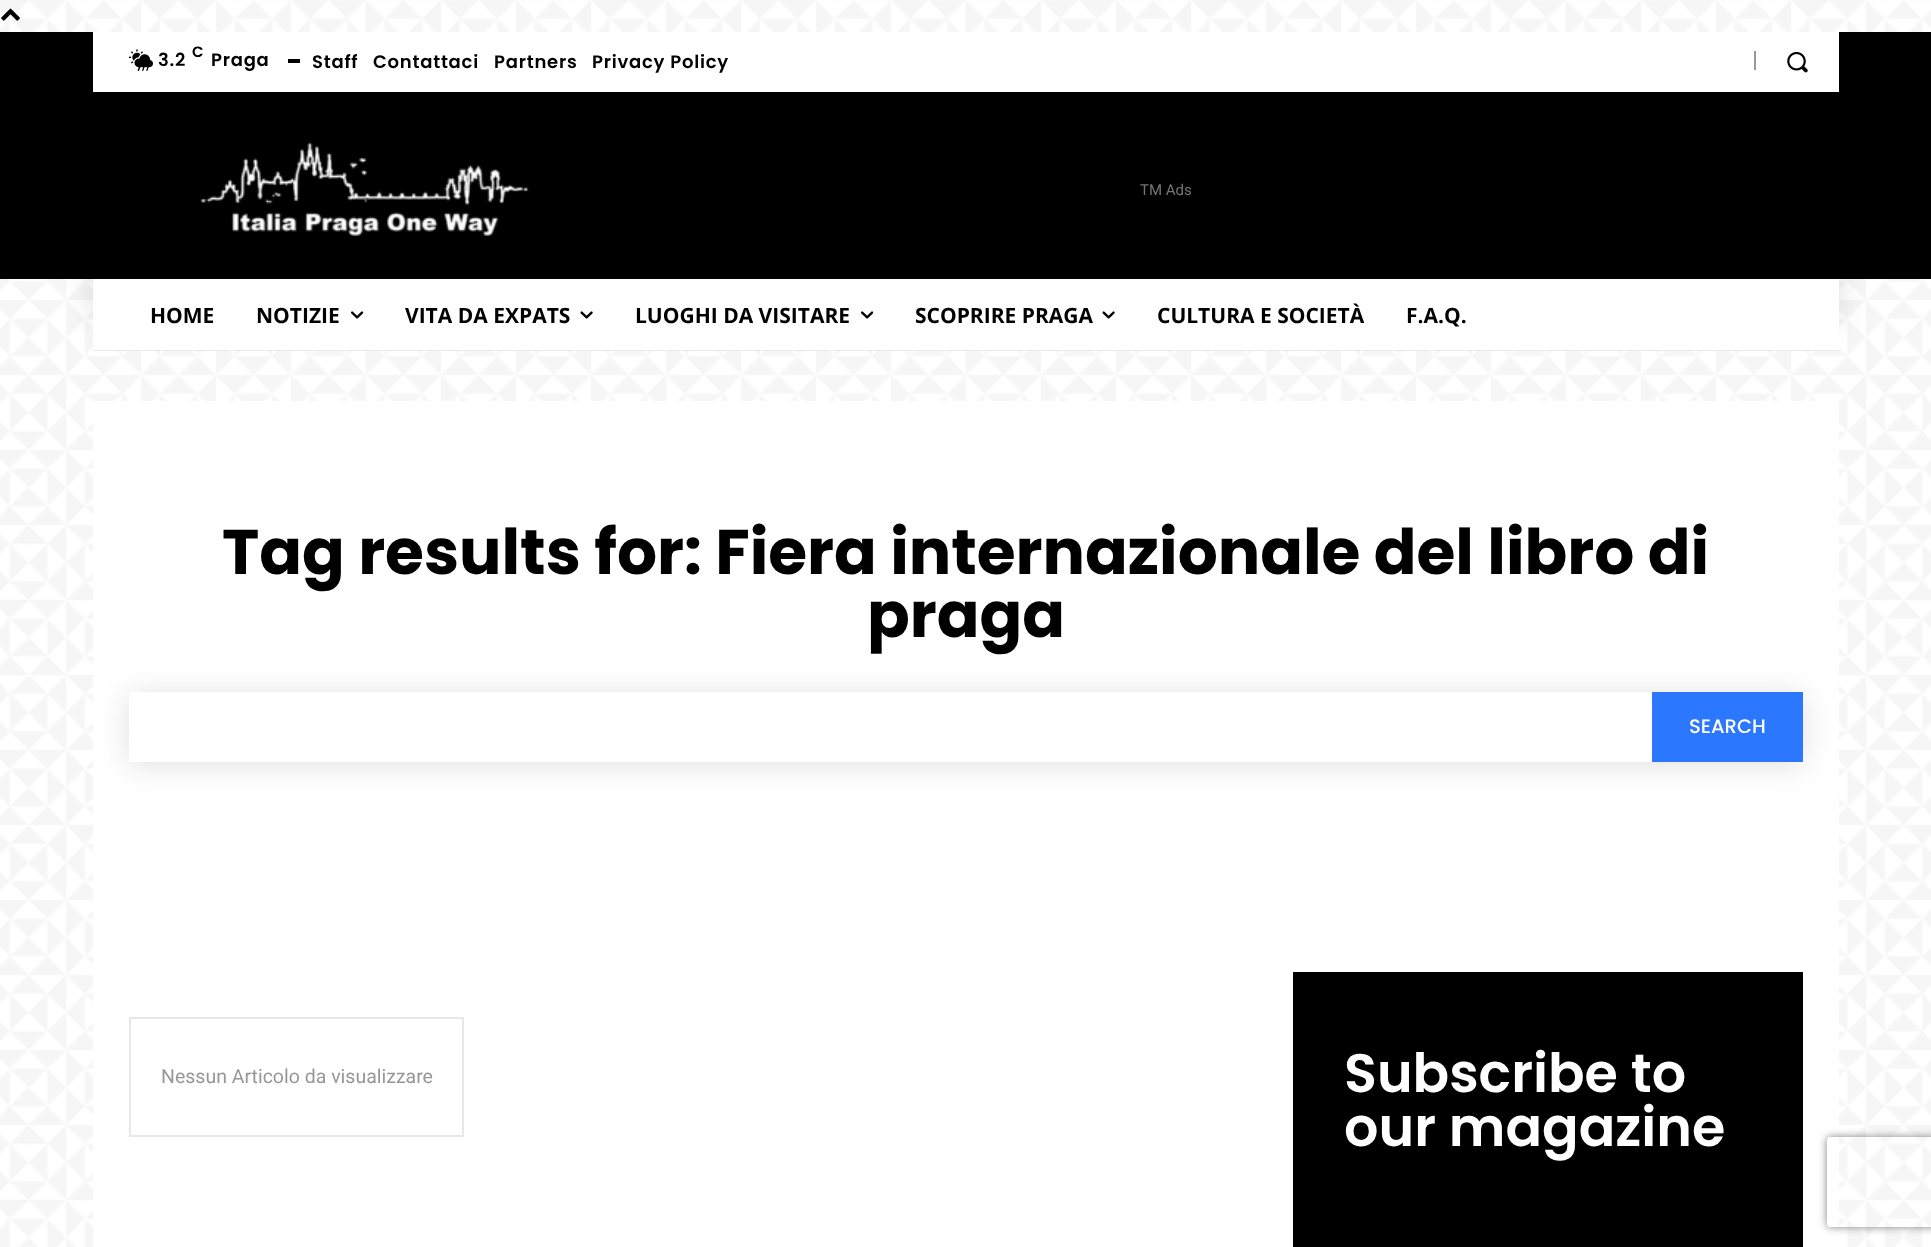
(async () => {
    const canvas = document.querySelector("canvas");
    canvas.width = 1931;
    canvas.height = 1247;
    const context = canvas.getContext("2d");
    context.miterLimit = 4;
    context.fontKerning = "normal";
    function write(s, x, y, font, color) {
        context.font = font;
        context.fillStyle = color;
        context.fillText(s, x, y);
    }
    function block(x, y, w, h, color) {
        context.fillStyle = color;
        context.fillRect(x, y, w, h);
    }
    async function photo(src, x, y, w, h) {
        const img = new Image();
        img.src = src;
        await img.decode();
        context.drawImage(img, x, y, w, h);
    }

    block(0, 0, 1931, 1247, "rgb(255, 255, 255)");
    await photo("media/1.png", 0, 0, 1931, 1247);
    await photo("media/2.png", 1, 8, 19, 13);
    block(0, 32, 1931, 247, "rgb(0, 0, 0)");
    block(93, 32, 1746, 60, "rgb(255, 255, 255)");
    await photo("media/3.png", 128, 49, 25, 22);
    context.letterSpacing = "0.75px";
    write("3.2", 158, 66, "600 18px Poppins", "rgb(0, 0, 0)");
    context.letterSpacing = "0px";
    write("C", 192, 57, "600 15px Poppins", "rgb(0, 0, 0)");
    context.letterSpacing = "0.75px";
    write("Praga", 211, 66, "600 18px Poppins", "rgb(0, 0, 0)");
    block(288, 59, 12, 4, "rgb(0, 0, 0)");
    write("Staff", 312, 68, "600 18px Poppins", "rgb(0, 0, 0)");
    write("Contattaci", 373, 68, "600 18px Poppins", "rgb(0, 0, 0)");
    write("Partners", 494, 68, "600 18px Poppins", "rgb(0, 0, 0)");
    write("Privacy Policy", 592, 68, "600 18px Poppins", "rgb(0, 0, 0)");
    block(1754, 51, 2, 19, "rgb(153, 153, 153)");
    await photo("media/4.png", 1787, 51, 21, 22);
    await photo("media/5.png", 200, 142, 329, 95);
    context.letterSpacing = "0px";
    write("TM Ads", 1140, 195, "15px Roboto", "rgb(118, 118, 118)");
    context.fillStyle = "rgba(0, 0, 0, 0.12)";
    context.filter = "blur(15px)";
    context.beginPath();
    context.rect(93, 249, 1746, 72);
    context.fill();
    context.filter = "none";
    block(93, 279, 1746, 71, "rgb(255, 255, 255)");
    block(93, 350, 1746, 1, "rgb(234, 234, 234)");
    write("HOME", 150, 323, "bold 21px Open Sans", "rgb(0, 0, 0)");
    write("NOTIZIE", 256, 323, "bold 21px Open Sans", "rgb(0, 0, 0)");
    await photo("media/6.png", 351, 311, 13, 8);
    write("VITA DA EXPATS", 405, 323, "bold 21px Open Sans", "rgb(0, 0, 0)");
    await photo("media/7.png", 580, 311, 13, 8);
    write("LUOGHI DA VISITARE", 635, 323, "bold 21px Open Sans", "rgb(0, 0, 0)");
    await photo("media/6.png", 861, 311, 13, 8);
    write("SCOPRIRE PRAGA", 915, 323, "bold 21px Open Sans", "rgb(0, 0, 0)");
    await photo("media/7.png", 1102, 311, 13, 8);
    write("CULTURA E SOCIETÀ", 1157, 323, "bold 21px Open Sans", "rgb(0, 0, 0)");
    write("F.A.Q.", 1406, 323, "bold 21px Open Sans", "rgb(0, 0, 0)");
    block(93, 401, 1746, 846, "rgb(255, 255, 255)");
    write("Tag results for: Fiera internazionale del libro di", 222, 574, "bold 63px Poppins", "rgb(0, 0, 0)");
    write("praga", 867, 637, "bold 63px Poppins", "rgb(0, 0, 0)");
    context.save();
    context.beginPath();
    context.moveTo(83, 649);
    context.lineTo(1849, 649);
    context.lineTo(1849, 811);
    context.lineTo(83, 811);
    context.closePath();
    context.moveTo(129, 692);
    context.lineTo(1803, 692);
    context.lineTo(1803, 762);
    context.lineTo(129, 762);
    context.closePath();
    context.clip("evenodd");
    context.fillStyle = "rgba(0, 0, 0, 0.12)";
    context.filter = "blur(15px)";
    context.beginPath();
    context.rect(129, 695, 1674, 70);
    context.fill();
    context.filter = "none";
    context.restore();
    block(1652, 692, 151, 70, "rgb(43, 120, 255)");
    write("SEARCH", 1689, 733, "500 19.5px Poppins", "rgb(255, 255, 255)");
    context.strokeStyle = "rgb(232, 232, 232)";
    context.lineWidth = 2;
    context.strokeRect(130, 1018, 333, 118);
    write("Nessun Articolo da visualizzare", 161, 1083, "19.5px Roboto", "rgb(151, 151, 151)");
    block(1293, 972, 510, 275, "rgb(0, 0, 0)");
    write("Subscribe to", 1344, 1092, "600 54px Poppins", "rgb(255, 255, 255)");
    write("our magazine", 1344, 1146, "600 54px Poppins", "rgb(255, 255, 255)");
    context.save();
    context.beginPath();
    context.moveTo(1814, 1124);
    context.lineTo(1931, 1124);
    context.lineTo(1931, 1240);
    context.lineTo(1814, 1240);
    context.closePath();
    context.moveTo(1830, 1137);
    context.lineTo(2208, 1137);
    context.bezierCurveTo(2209.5, 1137, 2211, 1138.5, 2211, 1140);
    context.lineTo(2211, 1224);
    context.bezierCurveTo(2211, 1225.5, 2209.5, 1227, 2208, 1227);
    context.lineTo(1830, 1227);
    context.bezierCurveTo(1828.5, 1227, 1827, 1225.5, 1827, 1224);
    context.lineTo(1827, 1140);
    context.bezierCurveTo(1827, 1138.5, 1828.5, 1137, 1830, 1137);
    context.closePath();
    context.clip("evenodd");
    context.fillStyle = "rgb(128, 128, 128)";
    context.filter = "blur(4px)";
    context.beginPath();
    context.roundRect(1827, 1137, 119, 90, 3);
    context.fill();
    context.filter = "none";
    context.restore();
})();
